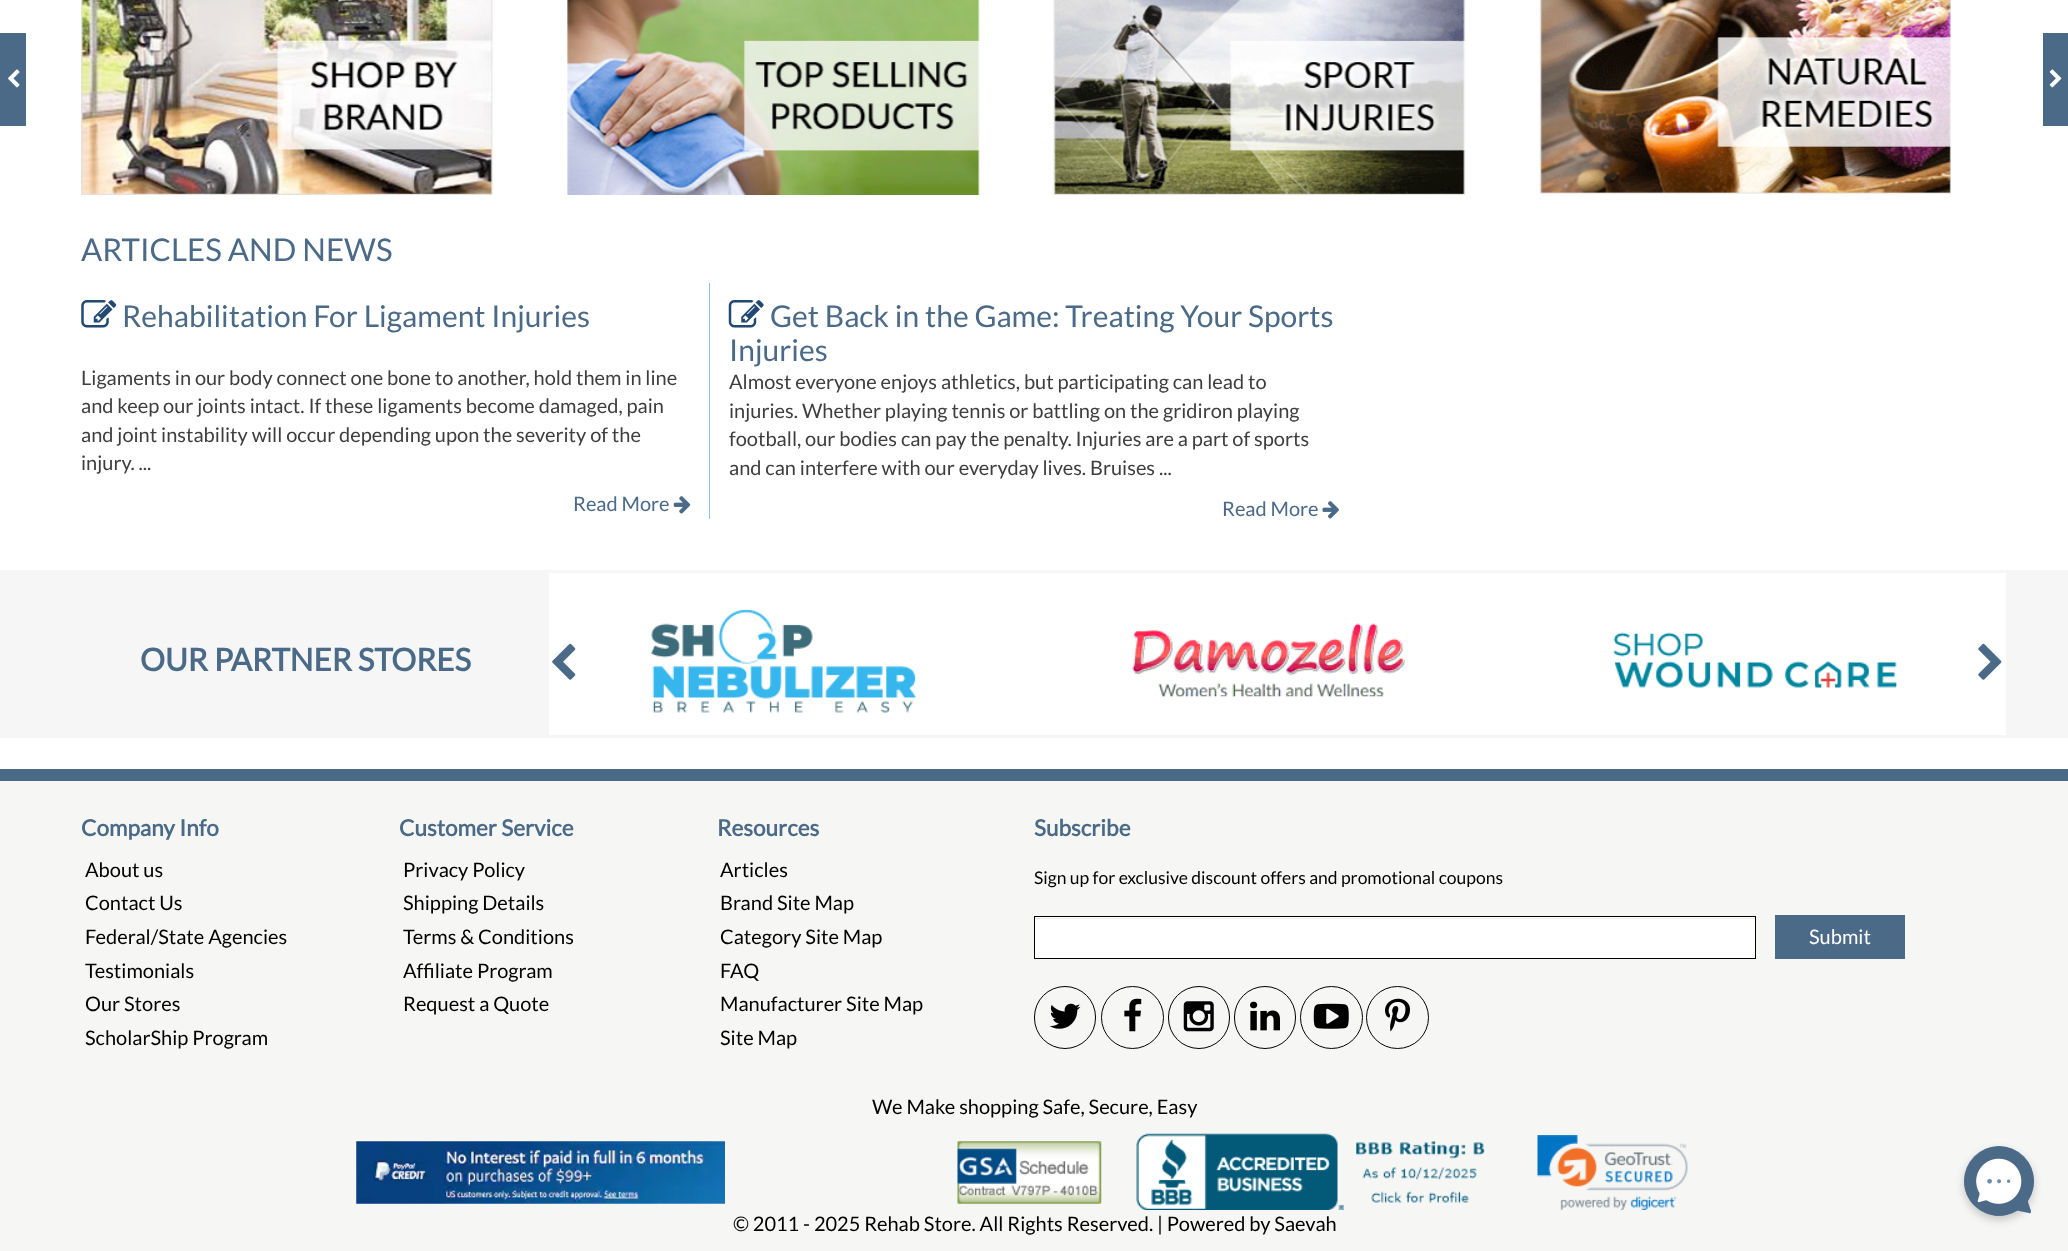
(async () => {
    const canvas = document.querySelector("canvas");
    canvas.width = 2068;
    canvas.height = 1251;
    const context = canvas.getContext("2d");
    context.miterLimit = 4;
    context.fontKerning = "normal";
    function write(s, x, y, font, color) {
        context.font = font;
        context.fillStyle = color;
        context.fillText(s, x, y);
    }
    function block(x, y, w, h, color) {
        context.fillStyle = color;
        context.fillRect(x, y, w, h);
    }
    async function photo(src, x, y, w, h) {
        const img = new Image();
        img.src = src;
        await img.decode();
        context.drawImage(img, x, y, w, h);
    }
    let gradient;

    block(0, 0, 2068, 1251, "rgb(255, 255, 255)");
    block(0, 33, 26, 93, "rgb(75, 106, 135)");
    await photo("media/1.png", 8, 69, 12, 19);
    await photo("media/2.png", 81, 0, 413, 195);
    await photo("media/3.png", 567, 0, 413, 195);
    await photo("media/4.png", 1053, 0, 413, 195);
    await photo("media/5.png", 1539, 0, 412, 194);
    block(2043, 33, 25, 93, "rgb(75, 106, 135)");
    await photo("media/6.png", 2049, 69, 13, 19);
    write("ARTICLES AND NEWS", 81, 261, "31.25px Lato", "rgb(75, 106, 135)");
    block(709, 283, 1, 236, "rgb(140, 197, 225)");
    await photo("media/7.png", 81, 300, 36, 28);
    write("Rehabilitation For Ligament Injuries", 122, 327, "30px Lato", "rgb(75, 106, 135)");
    write("Ligaments in our body connect one bone to another, hold them in line", 81, 385, "20px Lato", "rgb(62, 62, 62)");
    write("and keep our joints intact. If these ligaments become damaged, pain", 81, 413, "20px Lato", "rgb(62, 62, 62)");
    write("and joint instability will occur depending upon the severity of the", 81, 442, "20px Lato", "rgb(62, 62, 62)");
    write("injury. ...", 81, 470, "20px Lato", "rgb(62, 62, 62)");
    write("Read More", 573, 511, "20px Lato", "rgb(75, 106, 135)");
    await photo("media/8.png", 673, 496, 18, 18);
    await photo("media/9.png", 728, 300, 36, 28);
    write("Get Back in the Game: Treating Your Sports", 770, 327, "30px Lato", "rgb(75, 106, 135)");
    write("Injuries", 729, 361, "30px Lato", "rgb(75, 106, 135)");
    write("Almost everyone enjoys athletics, but participating can lead to", 729, 389, "20px Lato", "rgb(62, 62, 62)");
    write("injuries. Whether playing tennis or battling on the gridiron playing", 729, 418, "20px Lato", "rgb(62, 62, 62)");
    write("football, our bodies can pay the penalty. Injuries are a part of sports", 729, 446, "20px Lato", "rgb(62, 62, 62)");
    write("and can interfere with our everyday lives. Bruises ...", 729, 475, "20px Lato", "rgb(62, 62, 62)");
    write("Read More", 1222, 516, "20px Lato", "rgb(75, 106, 135)");
    await photo("media/10.png", 1322, 501, 17, 18);
    block(0, 570, 2068, 168, "rgb(246, 246, 246)");
    write("OUR PARTNER STORES", 140, 671, "bold 31.25px Lato", "rgb(75, 106, 135)");
    block(549, 573, 1457, 162, "rgb(255, 255, 255)");
    await photo("media/11.png", 552, 643, 24, 37);
    await photo("media/12.png", 651, 609, 266, 104);
    await photo("media/13.png", 1132, 623, 274, 74);
    await photo("media/14.png", 1613, 632, 284, 56);
    await photo("media/15.png", 1978, 643, 24, 37);
    block(0, 781, 2068, 470, "rgb(246, 246, 245)");
    block(0, 769, 2068, 12, "rgb(75, 106, 135)");
    write("Company Info", 81, 836, "bold 22.5px Lato", "rgb(75, 106, 135)");
    write("About us", 85, 877, "20px Lato", "rgb(0, 0, 0)");
    write("Contact Us", 85, 910, "20px Lato", "rgb(0, 0, 0)");
    write("Federal/State Agencies", 85, 944, "20px Lato", "rgb(0, 0, 0)");
    write("Testimonials", 85, 978, "20px Lato", "rgb(0, 0, 0)");
    write("Our Stores", 85, 1011, "20px Lato", "rgb(0, 0, 0)");
    write("ScholarShip Program", 85, 1045, "20px Lato", "rgb(0, 0, 0)");
    write("Customer Service", 399, 836, "bold 22.5px Lato", "rgb(75, 106, 135)");
    write("Privacy Policy", 403, 877, "20px Lato", "rgb(0, 0, 0)");
    write("Shipping Details", 403, 910, "20px Lato", "rgb(0, 0, 0)");
    write("Terms & Conditions", 403, 944, "20px Lato", "rgb(0, 0, 0)");
    write("Affiliate Program", 403, 978, "20px Lato", "rgb(0, 0, 0)");
    write("Request a Quote", 403, 1011, "20px Lato", "rgb(0, 0, 0)");
    write("Resources", 717, 836, "bold 22.5px Lato", "rgb(75, 106, 135)");
    write("Articles", 720, 877, "20px Lato", "rgb(0, 0, 0)");
    write("Brand Site Map", 720, 910, "20px Lato", "rgb(0, 0, 0)");
    write("Category Site Map", 720, 944, "20px Lato", "rgb(0, 0, 0)");
    write("FAQ", 720, 978, "20px Lato", "rgb(0, 0, 0)");
    write("Manufacturer Site Map", 720, 1011, "20px Lato", "rgb(0, 0, 0)");
    write("Site Map", 720, 1045, "20px Lato", "rgb(0, 0, 0)");
    write("Subscribe", 1034, 836, "bold 22.5px Lato", "rgb(75, 106, 135)");
    write("Sign up for exclusive discount offers and promotional coupons", 1034, 884, "17.5px Lato", "rgb(0, 0, 0)");
    block(1035, 917, 720, 41, "rgb(255, 255, 255)");
    block(1035, 918, 720, 1, "rgb(236, 236, 236)");
    context.strokeStyle = "rgb(0, 0, 0)";
    context.strokeRect(1034.5, 916.5, 721, 42);
    block(1775, 915, 130, 44, "rgb(75, 106, 135)");
    write("Submit", 1809, 944, "20px Lato", "rgb(255, 255, 255)");
    context.beginPath();
    context.roundRect(1034.5, 986.5, 61, 62, 30.5);
    context.stroke();
    await photo("media/16.png", 1050, 1003, 31, 26);
    context.beginPath();
    context.arc(1132.5, 1017.5, 31, 0, Math.PI * 2);
    context.stroke();
    await photo("media/17.png", 1124, 998, 18, 34);
    context.beginPath();
    context.roundRect(1168.5, 986.5, 61, 62, 30.5);
    context.stroke();
    await photo("media/18.png", 1183, 1001, 31, 31);
    context.beginPath();
    context.roundRect(1234.5, 986.5, 61, 62, 30.5);
    context.stroke();
    await photo("media/19.png", 1250, 1001, 30, 30);
    context.beginPath();
    context.arc(1331.5, 1017.5, 31, 0, Math.PI * 2);
    context.stroke();
    await photo("media/20.png", 1313, 1003, 36, 26);
    context.beginPath();
    context.arc(1397.5, 1017.5, 31, 0, Math.PI * 2);
    context.stroke();
    await photo("media/21.png", 1385, 998, 25, 34);
    write("We Make shopping Safe, Secure, Easy", 872, 1114, "20px Lato", "rgb(0, 0, 0)");
    await photo("media/22.png", 356, 1141, 369, 63);
    await photo("media/23.png", 957, 1141, 145, 63);
    await photo("media/24.png", 1136, 1133, 349, 77);
    await photo("media/25.png", 1537, 1135, 151, 75);
    write("© 2011 - 2025 Rehab Store. All Rights Reserved. | Powered by Saevah", 733, 1231, "20px Lato", "rgb(0, 0, 0)");
    context.fillStyle = "rgba(0, 0, 0, 0.2)";
    context.filter = "blur(4px)";
    context.beginPath();
    context.roundRect(1964, 1150, 70, 70, 35);
    context.fill();
    context.filter = "none";
    gradient = context.createLinearGradient(1964, 1216, 2034, 1146);
    gradient.addColorStop(0, "rgb(112, 141, 169)");
    gradient.addColorStop(1, "rgb(75, 106, 135)");
    context.fillStyle = gradient;
    context.beginPath();
    context.arc(1999, 1181, 35, 0, Math.PI * 2);
    context.fill();
    context.fillStyle = "rgb(75, 106, 135)";
    context.beginPath();
    context.moveTo(2023, 1157);
    context.bezierCurveTo(2010, 1143, 1987, 1143, 1974, 1158);
    context.bezierCurveTo(1961, 1171, 1961, 1192, 1974, 1205);
    context.bezierCurveTo(1986, 1217, 2003, 1219, 2016, 1211);
    context.bezierCurveTo(2017, 1211, 2018, 1210, 2019, 1211);
    context.lineTo(2029, 1213);
    context.bezierCurveTo(2030, 1214, 2031, 1213, 2031, 1211);
    context.lineTo(2028, 1202);
    context.bezierCurveTo(2028, 1201, 2028, 1200, 2029, 1199);
    context.bezierCurveTo(2037, 1186, 2035, 1168, 2023, 1157);
    context.closePath();
    context.fill();
    await photo("media/26.png", 1976, 1158, 46, 46);
    await photo("media/27.png", 1987, 1178, 24, 6);
})();
